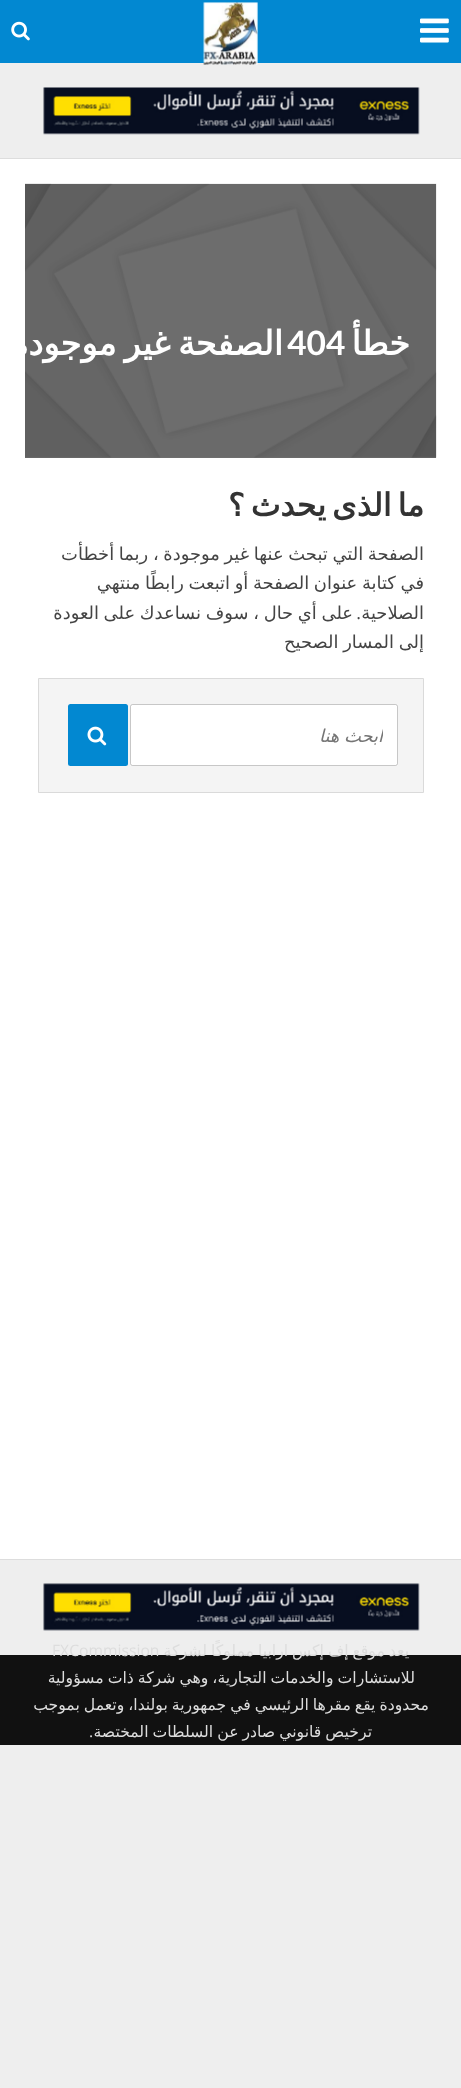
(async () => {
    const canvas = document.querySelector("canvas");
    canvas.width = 461;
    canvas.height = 2088;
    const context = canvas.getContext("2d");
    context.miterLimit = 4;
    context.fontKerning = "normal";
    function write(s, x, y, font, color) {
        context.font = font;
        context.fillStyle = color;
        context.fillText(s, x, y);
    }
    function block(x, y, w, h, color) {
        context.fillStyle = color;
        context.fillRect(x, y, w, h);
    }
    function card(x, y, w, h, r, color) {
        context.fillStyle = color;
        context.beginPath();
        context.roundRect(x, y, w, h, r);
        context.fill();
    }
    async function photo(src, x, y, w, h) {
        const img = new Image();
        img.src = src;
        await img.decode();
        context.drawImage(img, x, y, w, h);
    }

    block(0, 0, 461, 2088, "rgb(238, 238, 238)");
    block(0, 0, 461, 63, "rgb(2, 136, 209)");
    await photo("media/1.png", 420, 18, 29, 25);
    await photo("media/2.png", 203, 2, 55, 63);
    await photo("media/3.png", 11, 21, 19, 20);
    await photo("media/4.png", 43, 87, 377, 48);
    context.strokeStyle = "rgb(221, 221, 221)";
    context.strokeRect(-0.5, 158.5, 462, 1401);
    block(0, 159, 461, 1400, "rgb(255, 255, 255)");
    block(25, 456, 411, 2, "rgb(115, 115, 115)");
    await photo("media/5.png", 25, 183, 412, 275);
    context.direction = "rtl";
    write("خطأ", 410, 355, "bold 33.5px DejaVu Sans", "rgb(255, 255, 255)");
    context.direction = "ltr";
    write("404", 287, 355, "bold 33.5px Lato", "rgb(255, 255, 255)");
    context.wordSpacing = "-3px";
    context.direction = "rtl";
    write("الصفحة غير موجودة", 283, 355, "bold 33.5px DejaVu Sans", "rgb(255, 255, 255)");
    context.wordSpacing = "-4px";
    write("ما الذى يحدث ؟", 424, 516, "bold 31.5px DejaVu Sans", "rgb(51, 51, 51)");
    context.wordSpacing = "-1px";
    write("الصفحة التي تبحث عنها غير موجودة ، ربما أخطأت", 424, 560, "17.9px DejaVu Sans", "rgb(68, 68, 68)");
    write("في كتابة عنوان الصفحة أو اتبعت رابطًا منتهي", 424, 589, "17.9px DejaVu Sans", "rgb(68, 68, 68)");
    context.wordSpacing = "0px";
    write("الصلاحية", 424, 619, "17.9px DejaVu Sans", "rgb(68, 68, 68)");
    write(".", 361, 619, "17.9px Open Sans", "rgb(68, 68, 68)");
    context.wordSpacing = "-1px";
    write("على أي حال ، سوف نساعدك على العودة", 353, 619, "17.9px DejaVu Sans", "rgb(68, 68, 68)");
    write("إلى المسار الصحيح", 424, 648, "17.9px DejaVu Sans", "rgb(68, 68, 68)");
    context.fillStyle = "rgb(244, 244, 244)";
    context.beginPath();
    context.rect(38.5, 678.5, 385, 114);
    context.fill();
    context.strokeStyle = "rgb(218, 218, 218)";
    context.stroke();
    card(130, 704, 268, 62, 2.5, "rgb(255, 255, 255)");
    context.beginPath();
    context.roundRect(130.5, 704.5, 267, 61, 2);
    context.strokeStyle = "rgba(68, 68, 68, 0.3)";
    context.stroke();
    context.save();
    context.beginPath();
    context.rect(145, 724, 238, 24);
    context.clip();
    write("ابحث هنا", 383, 742, "italic 17.9px DejaVu Sans", "rgb(117, 117, 117)");
    context.restore();
    card(68, 704, 60, 62, 2.5, "rgb(2, 136, 209)");
    await photo("media/6.png", 87, 726, 20, 20);
    await photo("media/7.png", 43, 1583, 377, 48);
    block(0, 1655, 461, 90, "rgb(17, 17, 17)");
    write("يعد موقع إف إكس ارابيا مملوكًا لشركة", 409, 1656, "15.7px DejaVu Sans", "rgb(221, 221, 221)");
    context.wordSpacing = "0px";
    context.direction = "ltr";
    write("FXCommission", 52, 1656, "15.7px Open Sans", "rgb(221, 221, 221)");
    context.wordSpacing = "-1px";
    context.direction = "rtl";
    write("للاستشارات والخدمات التجارية، وهي شركة ذات مسؤولية", 415, 1683, "15.7px DejaVu Sans", "rgb(221, 221, 221)");
    write("محدودة يقع مقرها الرئيسي في جمهورية بولندا، وتعمل بموجب", 429, 1710, "15.7px DejaVu Sans", "rgb(221, 221, 221)");
    write("ترخيص قانوني صادر عن السلطات المختصة", 372, 1737, "15.7px DejaVu Sans", "rgb(221, 221, 221)");
    context.wordSpacing = "0px";
    write(".", 93, 1737, "15.7px Open Sans", "rgb(221, 221, 221)");
})();
